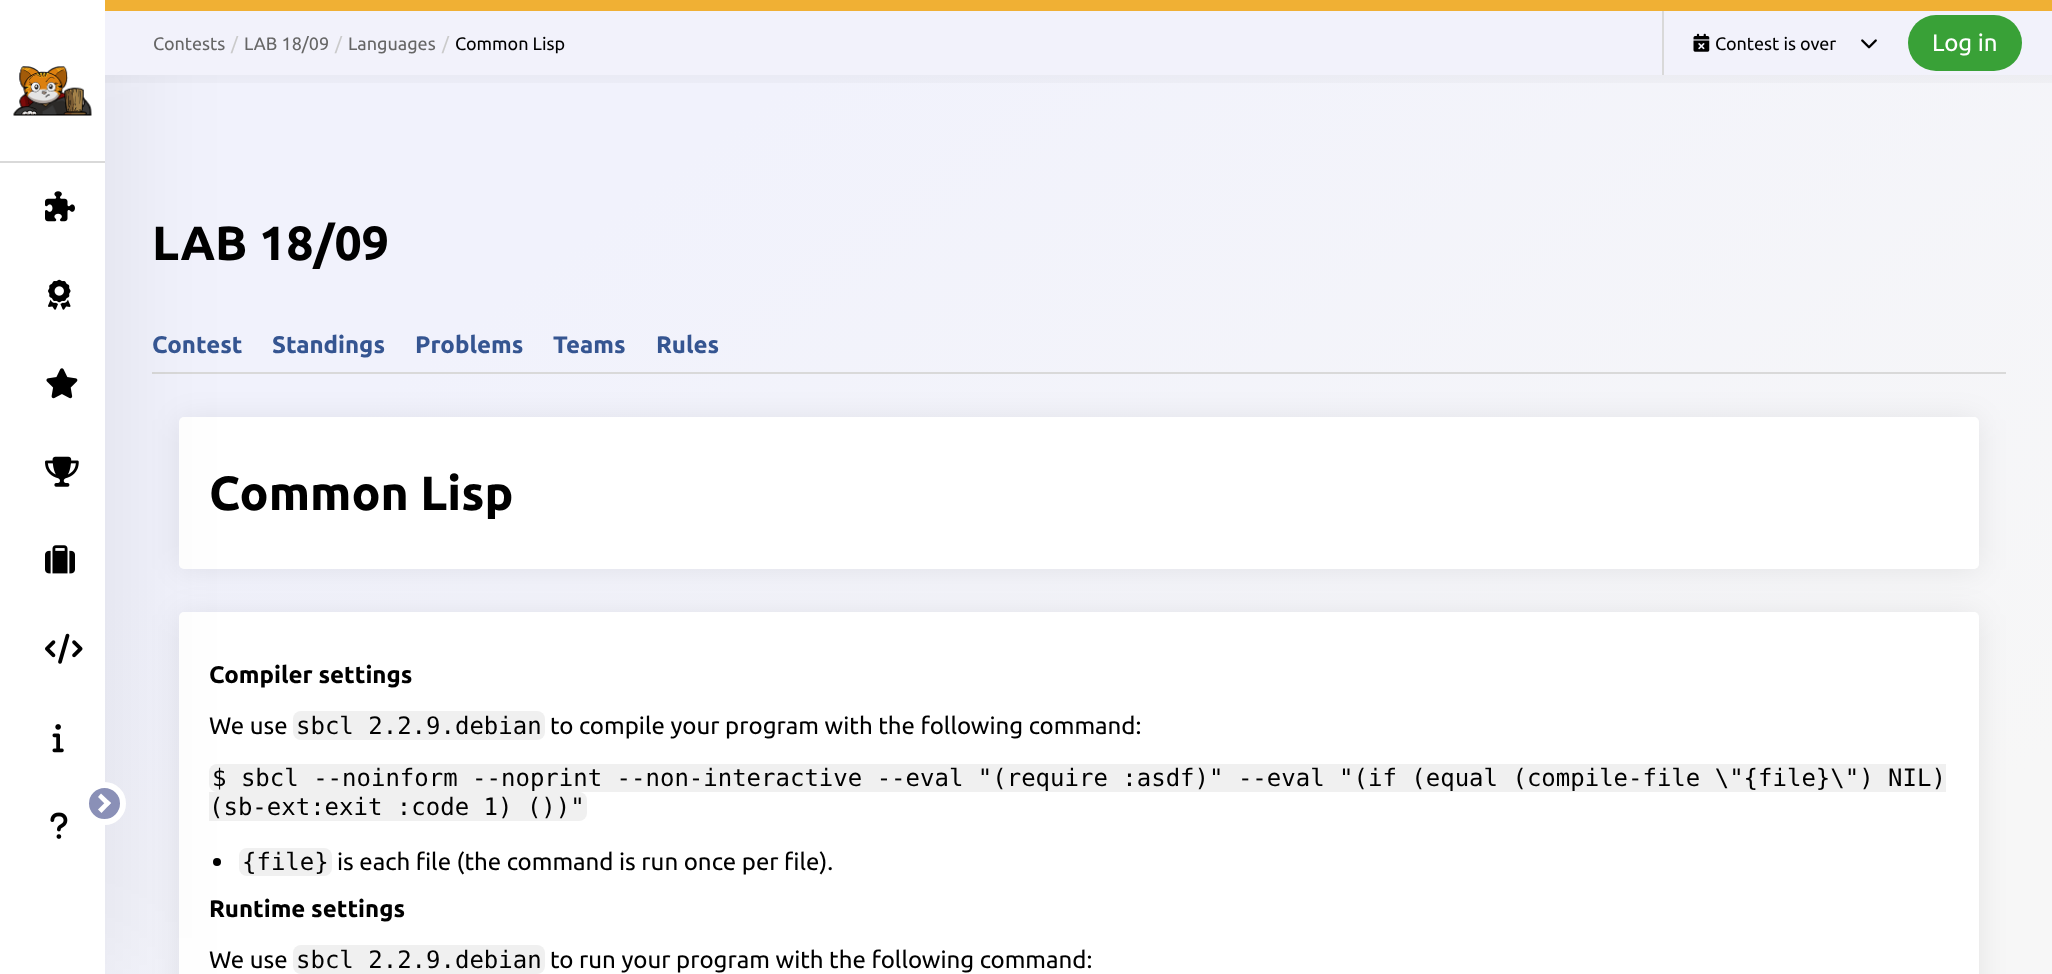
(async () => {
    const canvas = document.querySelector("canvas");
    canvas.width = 2052;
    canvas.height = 974;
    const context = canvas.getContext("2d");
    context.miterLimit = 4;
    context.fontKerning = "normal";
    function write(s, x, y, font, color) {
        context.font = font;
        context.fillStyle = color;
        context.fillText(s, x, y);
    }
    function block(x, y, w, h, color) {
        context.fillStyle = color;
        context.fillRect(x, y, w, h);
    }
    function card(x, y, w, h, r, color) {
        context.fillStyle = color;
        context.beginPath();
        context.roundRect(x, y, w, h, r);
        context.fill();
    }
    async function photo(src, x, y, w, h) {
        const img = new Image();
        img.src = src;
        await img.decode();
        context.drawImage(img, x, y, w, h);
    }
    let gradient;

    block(0, 0, 2052, 974, "rgb(255, 255, 255)");
    gradient = context.createLinearGradient(290, -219, 1762, 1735);
    gradient.addColorStop(0.22, "rgb(241, 242, 252)");
    gradient.addColorStop(0.75, "rgb(247, 247, 247)");
    context.fillStyle = gradient;
    context.fillRect(105, 75, 1947, 899);
    block(152, 372, 1854, 2, "rgb(217, 217, 217)");
    context.fillStyle = "rgba(0, 0, 0, 0.08)";
    context.filter = "blur(15px)";
    context.beginPath();
    context.roundRect(179, 419, 1800, 151, 5);
    context.fill();
    context.filter = "none";
    card(179, 417, 1800, 152, 5, "rgb(255, 255, 255)");
    context.fillStyle = "rgba(0, 0, 0, 0.08)";
    context.filter = "blur(15px)";
    context.beginPath();
    context.roundRect(179, 614, 1800, 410, 5);
    context.fill();
    context.filter = "none";
    card(179, 612, 1800, 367, 5, "rgb(255, 255, 255)");
    context.fillStyle = "rgb(240, 240, 240)";
    context.beginPath();
    context.roundRect(209, 764, 1737, 28, [8, 0, 0, 8]);
    context.fill();
    context.beginPath();
    context.roundRect(209, 792, 378, 29, [0, 8, 8, 0]);
    context.fill();
    context.fillStyle = "rgb(0, 0, 0)";
    context.beginPath();
    context.arc(217, 862, 4, 0, Math.PI * 2);
    context.fill();
    card(239, 848, 93, 28, 8, "rgb(240, 240, 240)");
    context.fillStyle = "rgba(0, 0, 0, 0.09)";
    context.filter = "blur(60px)";
    context.beginPath();
    context.rect(0, 3, 105, 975);
    context.fill();
    context.filter = "none";
    block(0, 0, 105, 974, "rgb(255, 255, 255)");
    block(0, 161, 105, 2, "rgb(217, 217, 217)");
    await photo("media/1.png", 13, 66, 79, 50);
    await photo("media/2.png", 45, 191, 30, 31);
    await photo("media/3.png", 48, 279, 23, 31);
    await photo("media/4.png", 46, 368, 32, 31);
    await photo("media/5.png", 45, 456, 34, 31);
    await photo("media/6.png", 45, 545, 30, 29);
    await photo("media/7.png", 45, 633, 38, 31);
    await photo("media/8.png", 52, 724, 12, 29);
    await photo("media/9.png", 50, 812, 18, 27);
    context.fillStyle = "rgb(138, 144, 183)";
    context.beginPath();
    context.arc(104.5, 803.5, 18.5, 0, Math.PI * 2);
    context.fill();
    context.strokeStyle = "rgb(255, 255, 255)";
    context.lineWidth = 6;
    context.stroke();
    context.fillStyle = "rgb(255, 255, 255)";
    context.beginPath();
    context.moveTo(98, 797);
    context.lineTo(101, 793.5);
    context.lineTo(111, 803);
    context.lineTo(107.5, 806.5);
    context.closePath();
    context.fill();
    context.beginPath();
    context.moveTo(98, 809.5);
    context.lineTo(107.5, 800);
    context.lineTo(111, 803);
    context.lineTo(101.5, 813);
    context.closePath();
    context.fill();
    block(105, 11, 1947, 64, "rgb(242, 242, 251)");
    block(105, 0, 1947, 11, "rgb(240, 176, 52)");
    write("Contests", 153, 50, "18px Ubuntu", "rgb(102, 102, 102)");
    write("/", 231, 50, "18px Ubuntu", "rgb(202, 202, 202)");
    write("LAB 18/09", 244, 50, "18px Ubuntu", "rgb(102, 102, 102)");
    write("/", 335, 50, "18px Ubuntu", "rgb(202, 202, 202)");
    write("Languages", 348, 50, "18px Ubuntu", "rgb(102, 102, 102)");
    write("/", 442, 50, "18px Ubuntu", "rgb(202, 202, 202)");
    write("Common Lisp", 455, 50, "18px Ubuntu", "rgb(0, 0, 0)");
    block(1662, 11, 2, 64, "rgb(217, 217, 217)");
    await photo("media/10.png", 1693, 33, 17, 19);
    write("Contest is over", 1715, 50, "18px Ubuntu", "rgb(0, 0, 0)");
    await photo("media/11.png", 1861, 39, 16, 10);
    card(1908, 15, 114, 56, 28, "rgb(57, 161, 55)");
    write("Log in", 1932, 51, "24px Ubuntu", "rgb(255, 255, 255)");
    gradient = context.createLinearGradient(1079, 75, 1079, 105);
    gradient.addColorStop(0, "rgba(0, 0, 0, 0.03)");
    gradient.addColorStop(1, "rgba(0, 0, 0, 0)");
    context.fillStyle = gradient;
    context.fillRect(105, 75, 1947, 8);
    write("LAB 18/09", 152, 260, "bold 48px Ubuntu", "rgb(0, 0, 0)");
    write("Contest", 152, 353, "bold 24px Ubuntu", "rgb(53, 85, 145)");
    write("Standings", 272, 353, "bold 24px Ubuntu", "rgb(53, 85, 145)");
    write("Problems", 415, 353, "bold 24px Ubuntu", "rgb(53, 85, 145)");
    write("Teams", 553, 353, "bold 24px Ubuntu", "rgb(53, 85, 145)");
    write("Rules", 656, 353, "bold 24px Ubuntu", "rgb(53, 85, 145)");
    write("Common Lisp", 209, 510, "bold 48px Ubuntu", "rgb(0, 0, 0)");
    write("Compiler settings", 209, 683, "bold 24px Ubuntu", "rgb(0, 0, 0)");
    write("We use", 209, 734, "24px Ubuntu", "rgb(0, 0, 0)");
    card(293, 711, 252, 29, 8, "rgb(240, 240, 240)");
    write("sbcl 2.2.9.debian", 296, 734, "24px DejaVu Sans Mono", "rgb(0, 0, 0)");
    write("to compile your program with the following command:", 550, 734, "24px Ubuntu", "rgb(0, 0, 0)");
    write("$ sbcl --noinform --noprint --non-interactive --eval \"(require :asdf)\" --eval \"(if (equal (compile-file \\\"{file}\\\") NIL)", 212, 786, "24px DejaVu Sans Mono", "rgb(0, 0, 0)");
    write("(sb-ext:exit :code 1) ())\"", 209, 815, "24px DejaVu Sans Mono", "rgb(0, 0, 0)");
    write("{file}", 242, 870, "24px DejaVu Sans Mono", "rgb(0, 0, 0)");
    write("is each file (the command is run once per file).", 337, 870, "24px Ubuntu", "rgb(0, 0, 0)");
    write("Runtime settings", 209, 917, "bold 24px Ubuntu", "rgb(0, 0, 0)");
    write("We use", 209, 968, "24px Ubuntu", "rgb(0, 0, 0)");
    card(293, 945, 252, 29, 8, "rgb(240, 240, 240)");
    write("sbcl 2.2.9.debian", 296, 968, "24px DejaVu Sans Mono", "rgb(0, 0, 0)");
    write("to run your program with the following command:", 550, 968, "24px Ubuntu", "rgb(0, 0, 0)");
})();
